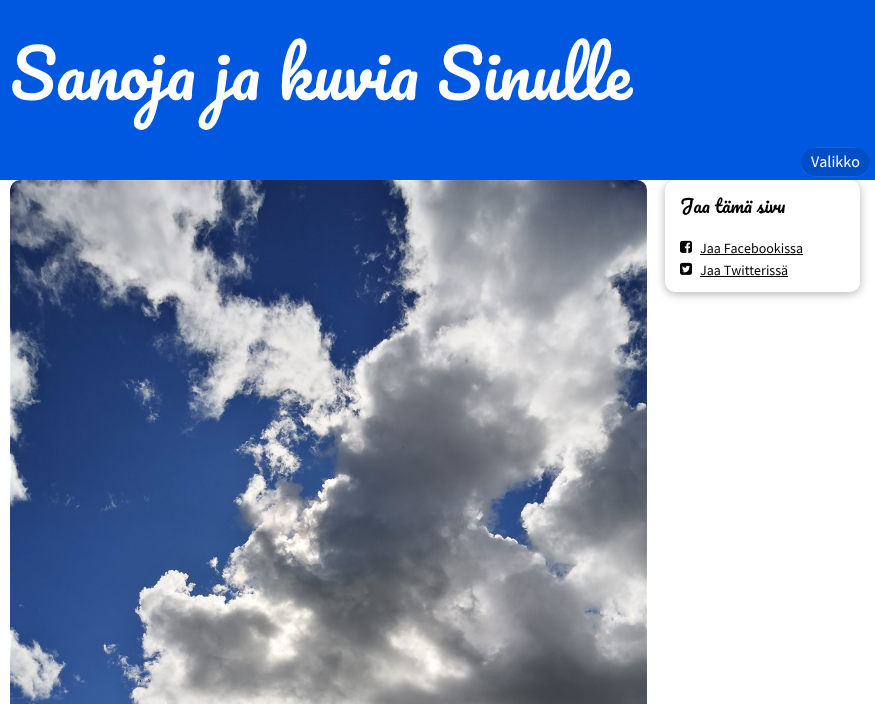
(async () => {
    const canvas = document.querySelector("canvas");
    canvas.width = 875;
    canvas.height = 704;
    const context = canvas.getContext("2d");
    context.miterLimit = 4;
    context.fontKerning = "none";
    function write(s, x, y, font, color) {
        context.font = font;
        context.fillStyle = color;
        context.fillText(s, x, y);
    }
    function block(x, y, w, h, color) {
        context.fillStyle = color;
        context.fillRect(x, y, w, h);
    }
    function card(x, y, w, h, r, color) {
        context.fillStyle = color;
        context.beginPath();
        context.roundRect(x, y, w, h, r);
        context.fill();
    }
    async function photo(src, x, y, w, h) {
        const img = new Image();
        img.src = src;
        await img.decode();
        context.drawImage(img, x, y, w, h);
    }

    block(0, 0, 875, 704, "rgb(255, 255, 255)");
    block(0, 0, 875, 145, "rgb(0, 88, 224)");
    context.wordSpacing = "0.5px";
    write("Sanoja ja kuvia Sinulle", 10, 100, "65.75px Pacifico", "rgb(255, 255, 255)");
    context.fillStyle = "rgba(0, 0, 0, 0.29)";
    context.filter = "blur(5px)";
    context.beginPath();
    context.roundRect(665, 182, 195, 112, 10);
    context.fill();
    context.filter = "none";
    block(0, 145, 875, 35, "rgb(0, 88, 224)");
    context.fillStyle = "rgb(19, 101, 226)";
    context.beginPath();
    context.moveTo(801, 162);
    context.bezierCurveTo(800, 181, 824, 177, 836, 177);
    context.bezierCurveTo(847, 177, 871, 181, 870, 162);
    context.bezierCurveTo(870, 170, 863, 176, 856, 176);
    context.lineTo(816, 176);
    context.bezierCurveTo(808, 176, 801, 170, 801, 162);
    context.closePath();
    context.fill();
    card(801, 147, 69, 29, 14.5, "rgb(0, 78, 199)");
    context.fillStyle = "rgba(255, 255, 255, 0.1)";
    context.beginPath();
    context.moveTo(816, 148);
    context.lineTo(856, 148);
    context.bezierCurveTo(864, 148, 870, 154, 870, 162);
    context.bezierCurveTo(870, 143, 847, 147, 836, 147);
    context.bezierCurveTo(824, 147, 801, 143, 801, 162);
    context.bezierCurveTo(801, 154, 807, 148, 816, 148);
    context.closePath();
    context.fill();
    context.wordSpacing = "0px";
    write("Valikko", 811, 167, "16px Source Sans Pro", "rgb(255, 255, 255)");
    await photo("media/1.png", 10, 180, 637, 524);
    card(665, 180, 195, 112, 10, "rgb(255, 255, 255)");
    write("Jaa tämä sivu", 680, 213, "18px Pacifico", "rgb(0, 0, 0)");
    await photo("media/2.png", 680, 240, 12, 13);
    write("Jaa Facebookissa", 700, 253, "14px Source Sans Pro", "rgb(0, 0, 0)");
    block(700, 254, 103, 1, "rgb(0, 0, 0)");
    await photo("media/3.png", 680, 262, 12, 13);
    write("Jaa Twitterissä", 700, 275, "14px Source Sans Pro", "rgb(0, 0, 0)");
    block(700, 276, 88, 1, "rgb(0, 0, 0)");
})();
